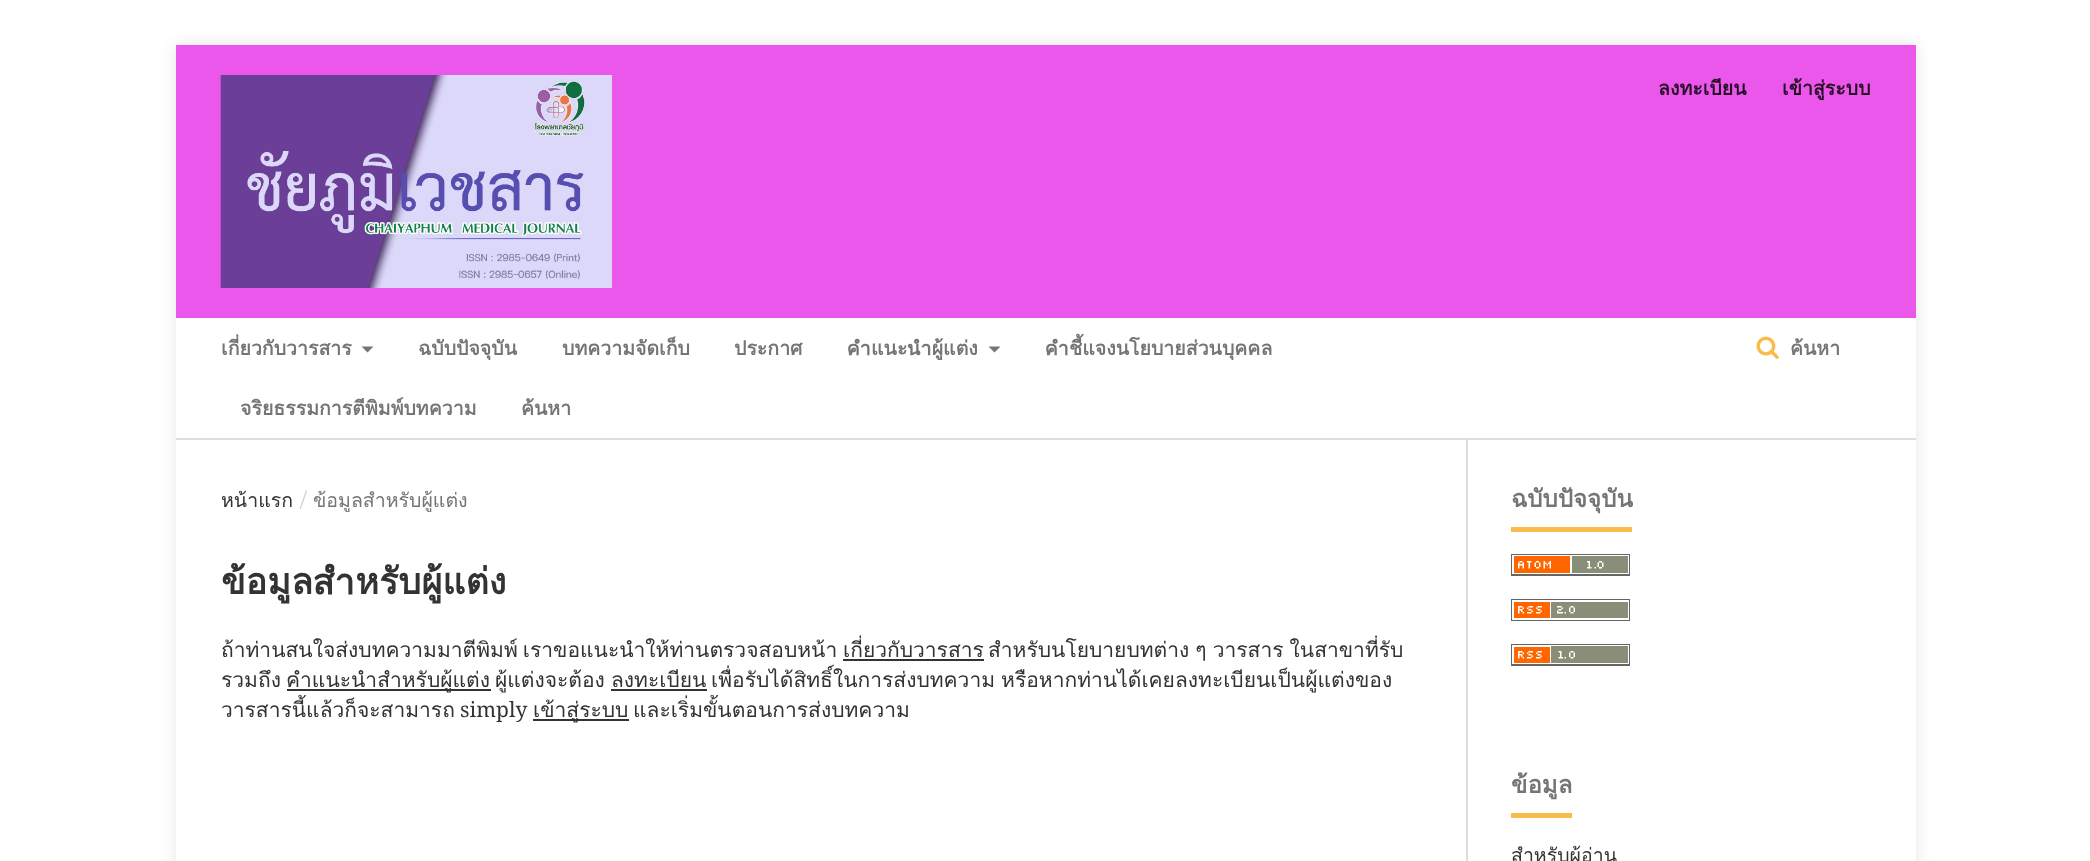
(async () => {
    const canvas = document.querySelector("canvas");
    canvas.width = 2090;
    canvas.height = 861;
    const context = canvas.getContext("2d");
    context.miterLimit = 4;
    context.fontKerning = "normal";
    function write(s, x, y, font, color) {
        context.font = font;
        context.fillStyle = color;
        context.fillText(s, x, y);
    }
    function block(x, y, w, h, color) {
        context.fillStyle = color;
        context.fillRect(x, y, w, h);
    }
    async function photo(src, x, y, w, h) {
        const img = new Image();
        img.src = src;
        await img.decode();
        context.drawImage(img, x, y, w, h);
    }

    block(0, 0, 2090, 861, "rgb(255, 255, 255)");
    context.fillStyle = "rgba(0, 0, 0, 0.1)";
    context.filter = "blur(7.5px)";
    context.beginPath();
    context.rect(176, 45, 1740, 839);
    context.fill();
    context.filter = "none";
    block(176, 440, 1740, 421, "rgb(255, 255, 255)");
    block(176, 45, 1740, 273, "rgb(235, 86, 235)");
    block(176, 438, 1740, 2, "rgb(221, 221, 221)");
    await photo("media/1.png", 220, 75, 392, 213);
    write("ลงทะเบียน", 1658, 95, "bold 19.5px Loma", "rgb(38, 14, 38)");
    write("เข้าสู่ระบบ", 1782, 95, "bold 19.5px Loma", "rgb(38, 14, 38)");
    block(176, 318, 1740, 120, "rgb(255, 255, 255)");
    write("เกี่ยวกับวารสาร", 221, 355, "bold 19.5px Loma", "rgb(117, 117, 117)");
    context.beginPath();
    context.moveTo(361.5, 346.5);
    context.lineTo(373.5, 346.5);
    context.lineTo(367.5, 352.5);
    context.closePath();
    context.fill();
    write("ฉบับปัจจุบัน", 418, 355, "bold 19.5px Loma", "rgb(117, 117, 117)");
    write("บทความจัดเก็บ", 562, 355, "bold 19.5px Loma", "rgb(117, 117, 117)");
    write("ประกาศ", 734, 355, "bold 19.5px Loma", "rgb(117, 117, 117)");
    write("คำแนะนำผู้แต่ง", 847, 355, "bold 19.5px Loma", "rgb(117, 117, 117)");
    context.beginPath();
    context.moveTo(988.5, 346.5);
    context.lineTo(1000.5, 346.5);
    context.lineTo(994.5, 352.5);
    context.closePath();
    context.fill();
    write("คำชี้แจงนโยบายส่วนบุคคล", 1045, 355, "bold 19.5px Loma", "rgb(117, 117, 117)");
    write("จริยธรรมการตีพิมพ์บทความ", 240, 415, "bold 19.5px Loma", "rgb(117, 117, 117)");
    write("ค้นหา", 521, 415, "bold 19.5px Loma", "rgb(117, 117, 117)");
    await photo("media/2.png", 1756, 336, 23, 23);
    write("ค้นหา", 1790, 355, "bold 19.5px Loma", "rgb(117, 117, 117)");
    write("หน้าแรก", 221, 507, "19.5px Loma", "rgb(51, 51, 51)");
    write("ข้อมูลสำหรับผู้แต่ง", 313, 507, "19.5px Loma", "rgb(117, 117, 117)");
    write("/", 300, 507, "19.5px Montserrat", "rgb(207, 207, 207)");
    write("ข้อมูลสำหรับผู้แต่ง", 221, 594, "bold 36px Loma", "rgb(51, 51, 51)");
    context.wordSpacing = "-2px";
    write("ถ้าท่านสนใจส่งบทความมาตีพิมพ์ เราขอแนะนำให้ท่านตรวจสอบหน้า", 221, 657, "21px Loma", "rgb(51, 51, 51)");
    context.wordSpacing = "0px";
    write("เกี่ยวกับวารสาร", 843, 657, "21px Loma", "rgb(51, 51, 51)");
    block(843, 659, 141, 2, "rgb(51, 51, 51)");
    context.wordSpacing = "-1px";
    write("สำหรับนโยบายบทต่าง ๆ วารสาร ในสาขาที่รับ", 988, 657, "21px Loma", "rgb(51, 51, 51)");
    context.wordSpacing = "0px";
    write("รวมถึง", 221, 687, "21px Loma", "rgb(51, 51, 51)");
    block(287, 689, 204, 2, "rgb(51, 51, 51)");
    write("คำแนะนำสำหรับผู้แต่ง", 286, 687, "21px Loma", "rgb(51, 51, 51)");
    write("ผู้แต่งจะต้อง", 495, 687, "21px Loma", "rgb(51, 51, 51)");
    write("ลงทะเบียน", 611, 687, "21px Loma", "rgb(51, 51, 51)");
    block(611, 689, 96, 2, "rgb(51, 51, 51)");
    context.wordSpacing = "-1px";
    write("เพื่อรับได้สิทธิ์ในการส่งบทความ หรือหากท่านได้เคยลงทะเบียนเป็นผู้แต่งของ", 711, 687, "21px Loma", "rgb(51, 51, 51)");
    context.wordSpacing = "0px";
    write("วารสารนี้แล้วก็จะสามารถ", 221, 717, "21px Loma", "rgb(51, 51, 51)");
    write("simply", 460, 717, "21px Noto Serif", "rgb(51, 51, 51)");
    block(533, 719, 96, 2, "rgb(51, 51, 51)");
    write("เข้าสู่ระบบ", 533, 717, "21px Loma", "rgb(51, 51, 51)");
    write("และเริ่มขั้นตอนการส่งบทความ", 633, 717, "21px Loma", "rgb(51, 51, 51)");
    block(1466, 440, 2, 421, "rgb(221, 221, 221)");
    block(1511, 527, 121, 5, "rgb(247, 188, 74)");
    write("ฉบับปัจจุบัน", 1511, 507, "bold 24px Loma", "rgb(117, 117, 117)");
    await photo("media/3.png", 1511, 554, 119, 22);
    await photo("media/4.png", 1511, 599, 119, 22);
    await photo("media/5.png", 1511, 644, 119, 22);
    block(1511, 813, 61, 5, "rgb(247, 188, 74)");
    write("ข้อมูล", 1511, 793, "bold 24px Loma", "rgb(117, 117, 117)");
    write("สำหรับผู้อ่าน", 1511, 862, "19.5px Loma", "rgb(51, 51, 51)");
})();
